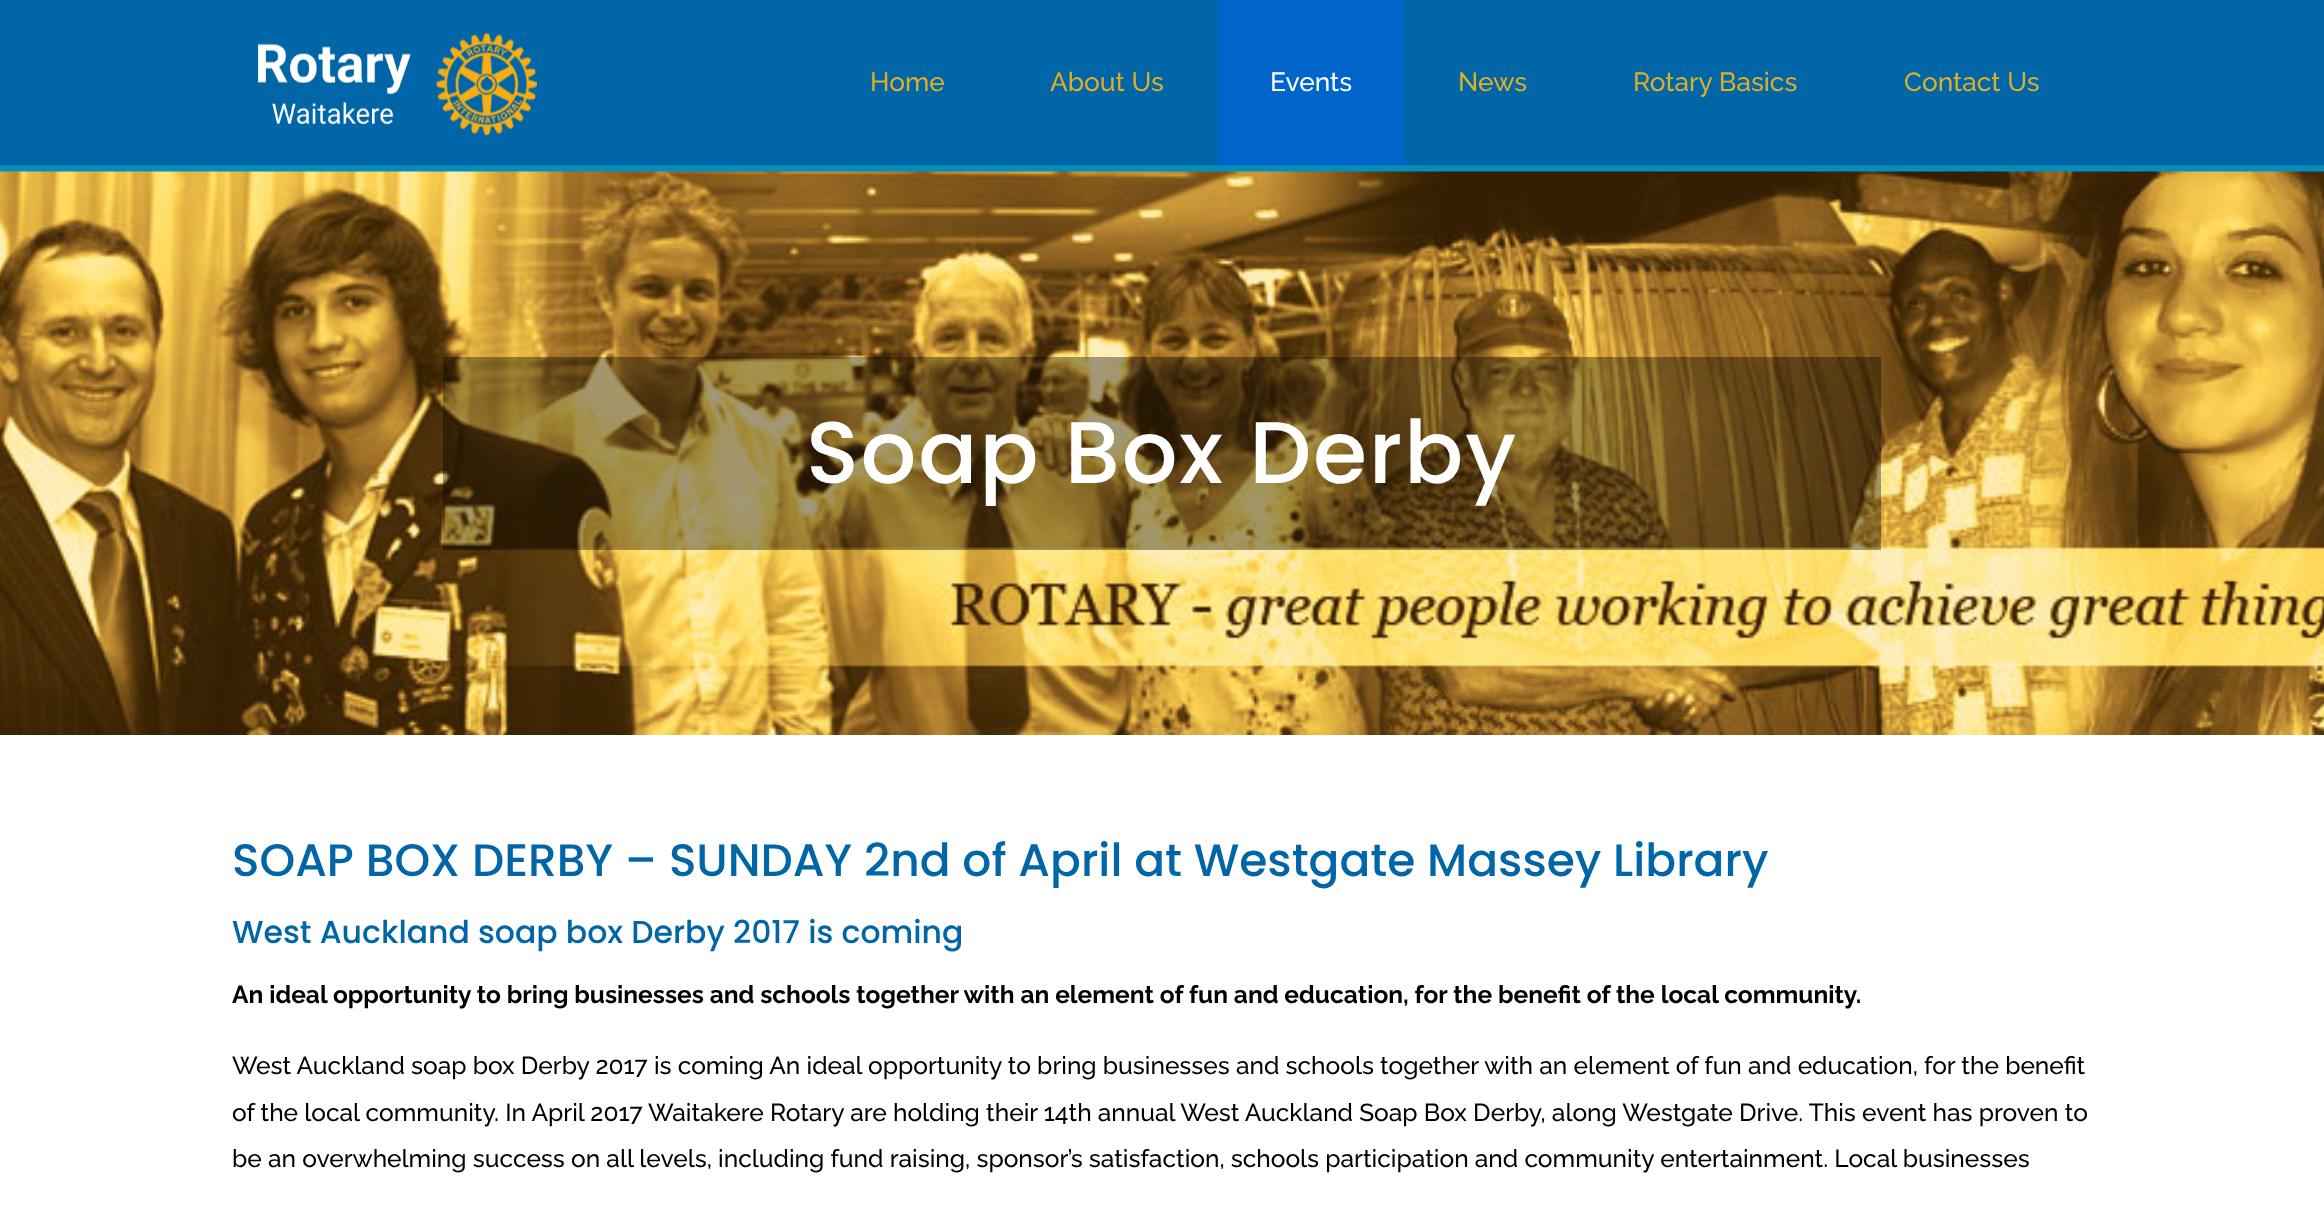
(async () => {
    const canvas = document.querySelector("canvas");
    canvas.width = 2324;
    canvas.height = 1208;
    const context = canvas.getContext("2d");
    context.miterLimit = 4;
    context.fontKerning = "normal";
    function write(s, x, y, font, color) {
        context.font = font;
        context.fillStyle = color;
        context.fillText(s, x, y);
    }
    function block(x, y, w, h, color) {
        context.fillStyle = color;
        context.fillRect(x, y, w, h);
    }
    async function photo(src, x, y, w, h) {
        const img = new Image();
        img.src = src;
        await img.decode();
        context.drawImage(img, x, y, w, h);
    }

    block(0, 0, 2324, 1208, "rgb(7, 141, 188)");
    block(0, 165, 2324, 1, "rgb(6, 127, 169)");
    block(0, 0, 2324, 165, "rgb(0, 102, 168)");
    await photo("media/1.png", 258, 32, 279, 104);
    write("Home", 870, 91, "500 26.25px Raleway", "rgb(220, 175, 39)");
    write("About Us", 1050, 91, "500 26.25px Raleway", "rgb(220, 175, 39)");
    block(1218, 0, 187, 165, "rgb(0, 101, 203)");
    write("Events", 1270, 91, "500 26.25px Raleway", "rgb(255, 255, 255)");
    write("News", 1458, 91, "500 26.25px Raleway", "rgb(220, 175, 39)");
    write("Rotary Basics", 1633, 91, "500 26.25px Raleway", "rgb(220, 175, 39)");
    write("Contact Us", 1904, 91, "500 26.25px Raleway", "rgb(220, 175, 39)");
    await photo("media/2.png", 0, 171, 2324, 564);
    block(443, 357, 1438, 193, "rgba(0, 0, 0, 0.36)");
    context.letterSpacing = "1.75px";
    write("Soap Box Derby", 806, 483, "500 87.5px Poppins", "rgb(255, 255, 255)");
    block(0, 735, 2324, 473, "rgb(255, 255, 255)");
    context.letterSpacing = "0px";
    write("SOAP BOX DERBY – SUNDAY 2nd of April at Westgate Massey Library", 232, 876, "500 45.5px Poppins", "rgb(0, 102, 168)");
    write("West Auckland soap box Derby 2017 is coming", 232, 943, "500 31.5px Poppins", "rgb(0, 102, 168)");
    write("An ideal opportunity to bring businesses and schools together with an element of fun and education, for the benefit of the local community.", 232, 1003, "bold 24.5px Raleway", "rgb(0, 0, 0)");
    write("West Auckland soap box Derby 2017 is coming An ideal opportunity to bring businesses and schools together with an element of fun and education, for the benefit", 232, 1074, "500 24.5px Raleway", "rgb(0, 0, 0)");
    write("of the local community. In April 2017 Waitakere Rotary are holding their 14th annual West Auckland Soap Box Derby, along Westgate Drive. This event has proven to", 232, 1121, "500 24.5px Raleway", "rgb(0, 0, 0)");
    write("be an overwhelming success on all levels, including fund raising, sponsor’s satisfaction, schools participation and community entertainment. Local businesses", 232, 1167, "500 24.5px Raleway", "rgb(0, 0, 0)");
})();
